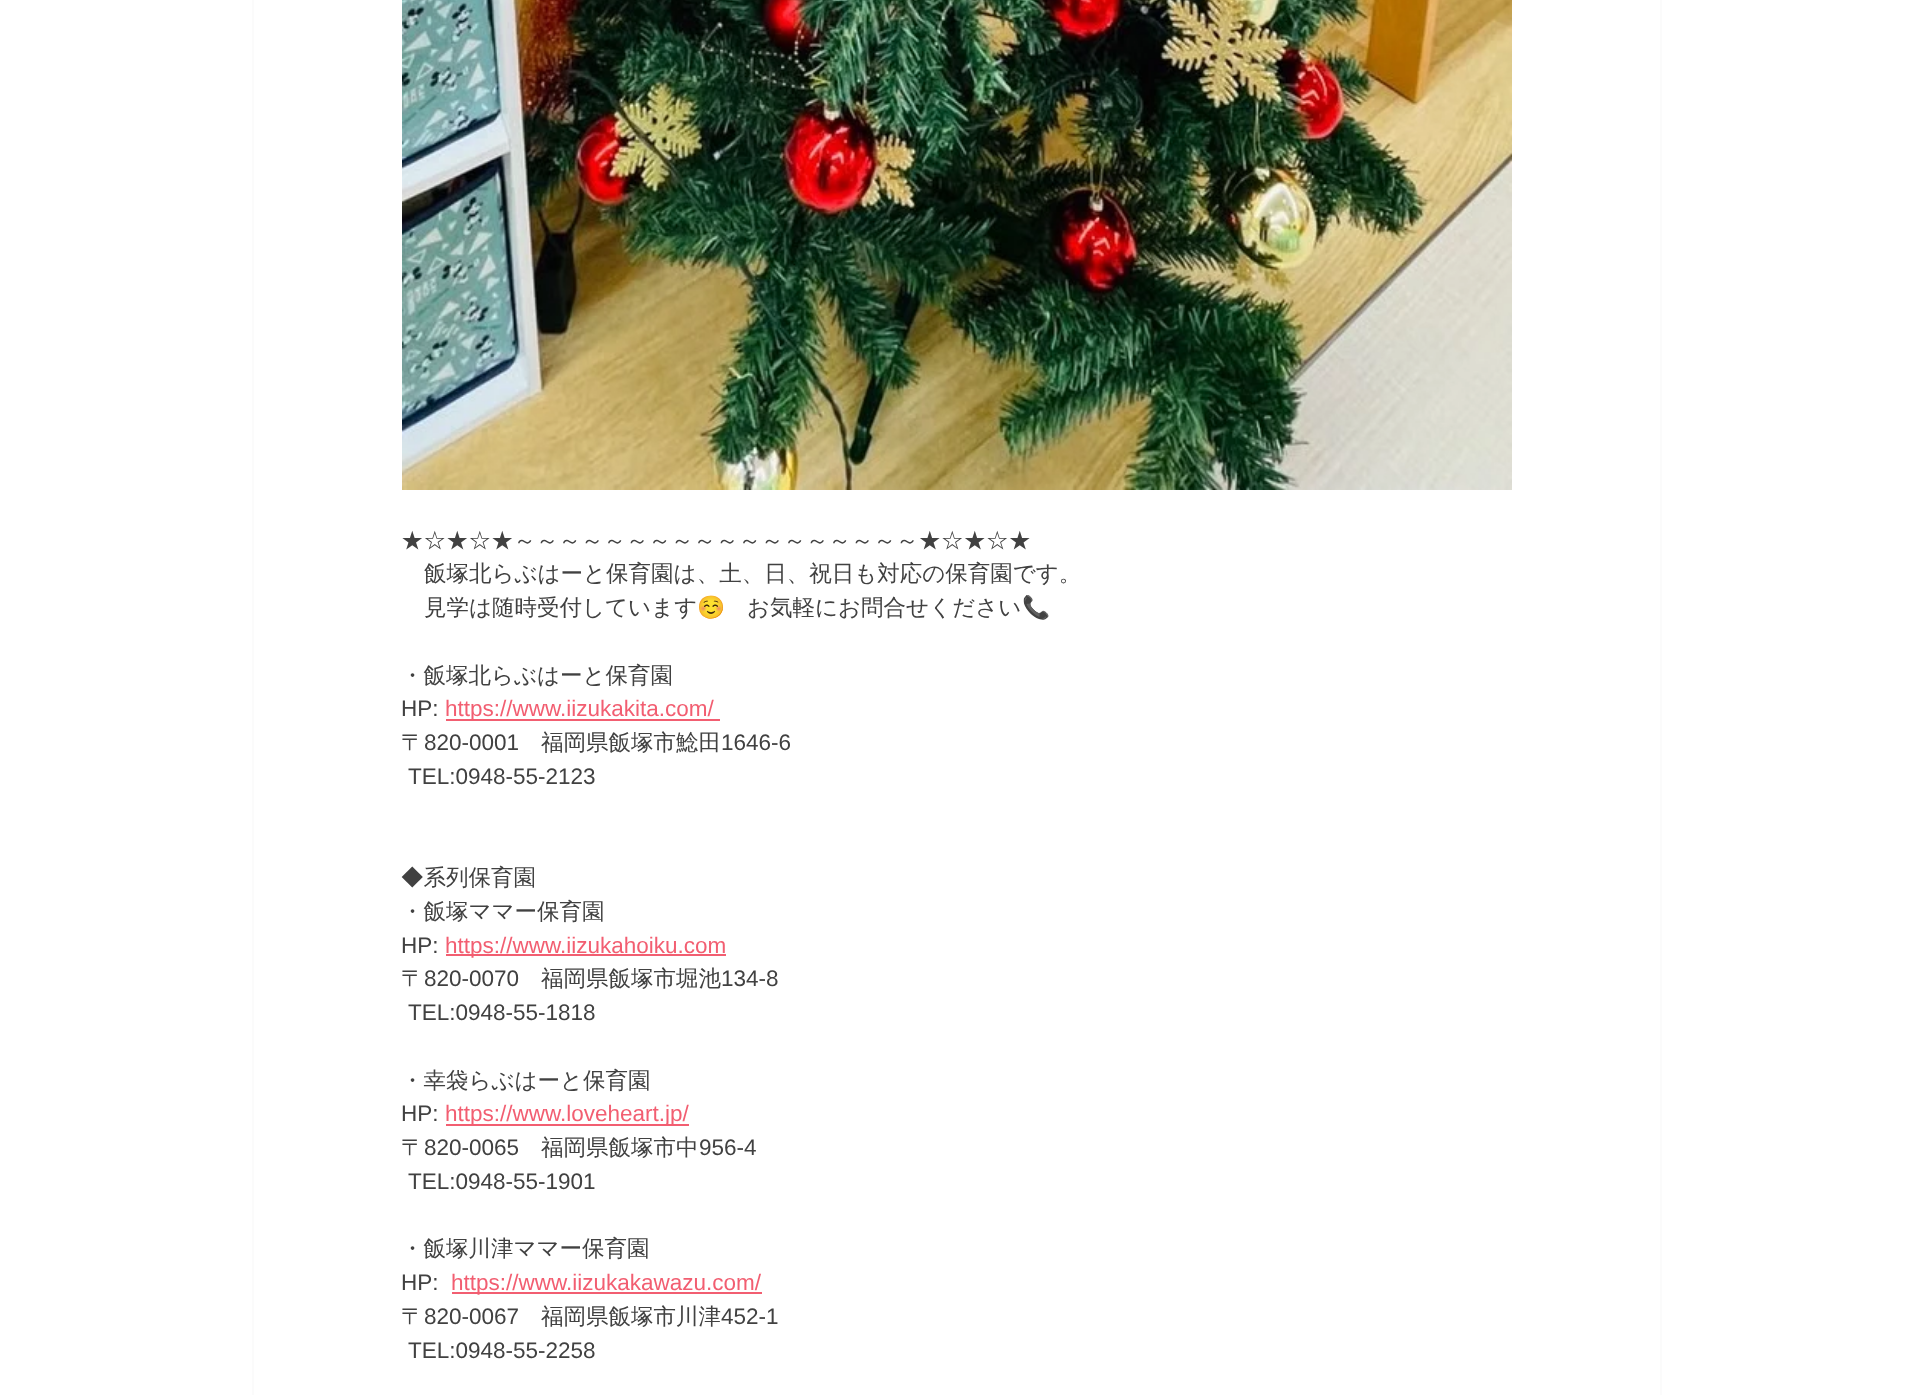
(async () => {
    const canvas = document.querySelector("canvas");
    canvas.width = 1912;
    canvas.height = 1395;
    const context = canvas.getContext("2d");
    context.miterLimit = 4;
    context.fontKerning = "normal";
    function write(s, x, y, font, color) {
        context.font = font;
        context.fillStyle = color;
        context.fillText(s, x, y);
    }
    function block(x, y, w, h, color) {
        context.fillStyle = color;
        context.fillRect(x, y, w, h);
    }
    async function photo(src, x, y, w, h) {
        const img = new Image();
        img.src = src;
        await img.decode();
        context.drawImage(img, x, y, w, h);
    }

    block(0, 0, 1912, 1395, "rgb(255, 255, 255)");
    context.strokeStyle = "rgb(251, 251, 251)";
    context.lineWidth = 2;
    context.strokeRect(253, -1, 1408, 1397);
    await photo("media/1.png", 402, 0, 1110, 490);
    write("★☆★☆★～～～～～～～～～～～～～～～～～～★☆★☆★", 401, 548, "500 22.5px WenQuanYi Zen Hei", "rgb(65, 65, 65)");
    write("飯塚北らぶはーと保育園は、土、日、祝日も対応の保育園です。", 424, 581, "500 22.5px WenQuanYi Zen Hei", "rgb(65, 65, 65)");
    write("見学は随時受付しています", 424, 615, "500 22.5px WenQuanYi Zen Hei", "rgb(65, 65, 65)");
    write("☺️", 697, 615, "22.5px Noto Color Emoji", "rgb(65, 65, 65)");
    write("お気軽にお問合せください", 747, 615, "500 22.5px WenQuanYi Zen Hei", "rgb(65, 65, 65)");
    write("📞", 1022, 615, "22.5px Noto Color Emoji", "rgb(65, 65, 65)");
    write("・飯塚北らぶはーと保育園", 401, 683, "500 22.5px WenQuanYi Zen Hei", "rgb(65, 65, 65)");
    write("HP:", 401, 716, "22.5px Liberation Sans", "rgb(65, 65, 65)");
    block(446, 719, 274, 2, "rgb(242, 94, 113)");
    write("https://www.iizukakita.com/", 445, 716, "22.5px Liberation Sans", "rgb(242, 94, 113)");
    write("〒", 401, 750, "500 22.5px WenQuanYi Zen Hei", "rgb(65, 65, 65)");
    write("820-0001", 424, 750, "22.5px Liberation Sans", "rgb(65, 65, 65)");
    write("福岡県飯塚市鯰田", 541, 750, "500 22.5px WenQuanYi Zen Hei", "rgb(65, 65, 65)");
    write("1646-6", 721, 750, "22.5px Liberation Sans", "rgb(65, 65, 65)");
    write("TEL:0948-55-2123", 408, 784, "22.5px Liberation Sans", "rgb(65, 65, 65)");
    write("◆系列保育園", 401, 885, "500 22.5px WenQuanYi Zen Hei", "rgb(65, 65, 65)");
    write("・飯塚ママー保育園", 401, 919, "500 22.5px WenQuanYi Zen Hei", "rgb(65, 65, 65)");
    write("HP:", 401, 953, "22.5px Liberation Sans", "rgb(65, 65, 65)");
    block(446, 954, 280, 2, "rgb(242, 94, 113)");
    write("https://www.iizukahoiku.com", 445, 953, "22.5px Liberation Sans", "rgb(242, 94, 113)");
    write("〒", 401, 986, "500 22.5px WenQuanYi Zen Hei", "rgb(65, 65, 65)");
    write("820-0070", 424, 986, "22.5px Liberation Sans", "rgb(65, 65, 65)");
    write("福岡県飯塚市堀池", 541, 986, "500 22.5px WenQuanYi Zen Hei", "rgb(65, 65, 65)");
    write("134-8", 721, 986, "22.5px Liberation Sans", "rgb(65, 65, 65)");
    write("TEL:0948-55-1818", 408, 1020, "22.5px Liberation Sans", "rgb(65, 65, 65)");
    write("・幸袋らぶはーと保育園", 401, 1088, "500 22.5px WenQuanYi Zen Hei", "rgb(65, 65, 65)");
    write("HP:", 401, 1121, "22.5px Liberation Sans", "rgb(65, 65, 65)");
    block(446, 1124, 243, 2, "rgb(242, 94, 113)");
    write("https://www.loveheart.jp/", 445, 1121, "22.5px Liberation Sans", "rgb(242, 94, 113)");
    write("〒", 401, 1155, "500 22.5px WenQuanYi Zen Hei", "rgb(65, 65, 65)");
    write("820-0065", 424, 1155, "22.5px Liberation Sans", "rgb(65, 65, 65)");
    write("福岡県飯塚市中", 541, 1155, "500 22.5px WenQuanYi Zen Hei", "rgb(65, 65, 65)");
    write("956-4", 699, 1155, "22.5px Liberation Sans", "rgb(65, 65, 65)");
    write("TEL:0948-55-1901", 408, 1189, "22.5px Liberation Sans", "rgb(65, 65, 65)");
    write("・飯塚川津ママー保育園", 401, 1256, "500 22.5px WenQuanYi Zen Hei", "rgb(65, 65, 65)");
    write("HP:", 401, 1290, "22.5px Liberation Sans", "rgb(65, 65, 65)");
    block(452, 1292, 310, 2, "rgb(242, 94, 113)");
    write("https://www.iizukakawazu.com/", 451, 1290, "22.5px Liberation Sans", "rgb(242, 94, 113)");
    write("〒", 401, 1324, "500 22.5px WenQuanYi Zen Hei", "rgb(65, 65, 65)");
    write("820-0067", 424, 1324, "22.5px Liberation Sans", "rgb(65, 65, 65)");
    write("福岡県飯塚市川津", 541, 1324, "500 22.5px WenQuanYi Zen Hei", "rgb(65, 65, 65)");
    write("452-1", 721, 1324, "22.5px Liberation Sans", "rgb(65, 65, 65)");
    write("TEL:0948-55-2258", 408, 1358, "22.5px Liberation Sans", "rgb(65, 65, 65)");
})();
